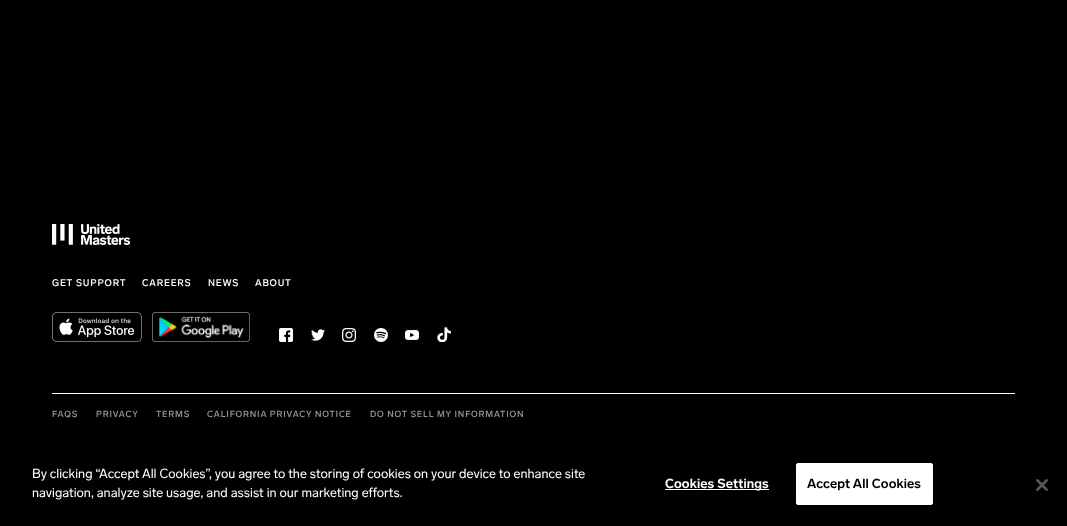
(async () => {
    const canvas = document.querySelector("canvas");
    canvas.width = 1067;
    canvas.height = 526;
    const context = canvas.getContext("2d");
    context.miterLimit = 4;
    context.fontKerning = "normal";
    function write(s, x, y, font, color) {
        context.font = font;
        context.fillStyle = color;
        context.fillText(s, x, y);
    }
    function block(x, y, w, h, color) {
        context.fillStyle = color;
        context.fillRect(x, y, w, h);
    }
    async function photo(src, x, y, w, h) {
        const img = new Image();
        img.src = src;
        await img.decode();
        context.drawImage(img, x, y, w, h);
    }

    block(0, 0, 1067, 526, "rgb(0, 0, 0)");
    await photo("media/1.png", 52, 224, 78, 21);
    context.letterSpacing = "0.8px";
    write("GET SUPPORT", 52, 286, "500 9.5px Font", "rgb(255, 255, 255)");
    write("CAREERS", 142, 286, "500 9.5px Font", "rgb(255, 255, 255)");
    write("NEWS", 208, 286, "500 9.5px Font", "rgb(255, 255, 255)");
    write("ABOUT", 255, 286, "500 9.5px Font", "rgb(255, 255, 255)");
    await photo("media/2.png", 52, 312, 90, 30);
    await photo("media/3.png", 152, 312, 98, 30);
    await photo("media/4.png", 279, 328, 14, 14);
    await photo("media/5.png", 311, 329, 14, 12);
    await photo("media/6.png", 342, 328, 14, 14);
    await photo("media/7.png", 374, 328, 14, 14);
    await photo("media/8.png", 405, 330, 14, 10);
    await photo("media/9.png", 437, 327, 14, 15);
    block(52, 393, 963, 1, "rgb(255, 255, 255)");
    write("FAQS", 52, 417, "500 8.75px Font", "rgb(153, 153, 153)");
    write("PRIVACY", 96, 417, "500 8.75px Font", "rgb(153, 153, 153)");
    write("TERMS", 156, 417, "500 8.75px Font", "rgb(153, 153, 153)");
    write("CALIFORNIA PRIVACY NOTICE", 207, 417, "500 8.75px Font", "rgb(153, 153, 153)");
    write("DO NOT SELL MY INFORMATION", 370, 417, "500 8.75px Font", "rgb(153, 153, 153)");
    context.letterSpacing = "0px";
    write("By clicking “Accept All Cookies”, you agree to the storing of cookies on your device to enhance site", 32, 478, "13px Font", "rgb(255, 255, 255)");
    write("navigation, analyze site usage, and assist in our marketing efforts.", 32, 497, "13px Font", "rgb(255, 255, 255)");
    block(665, 489, 104, 1, "rgb(255, 255, 255)");
    context.letterSpacing = "0.1px";
    write("Cookies Settings", 665, 488, "bold 13px Font", "rgb(255, 255, 255)");
    context.beginPath();
    context.roundRect(796.5, 463.5, 136, 41, 1.5);
    context.fill();
    context.strokeStyle = "rgb(255, 255, 255)";
    context.stroke();
    write("Accept All Cookies", 807, 488, "bold 13px Font", "rgb(0, 0, 0)");
    await photo("media/10.png", 1036, 479, 12, 12);
})();
